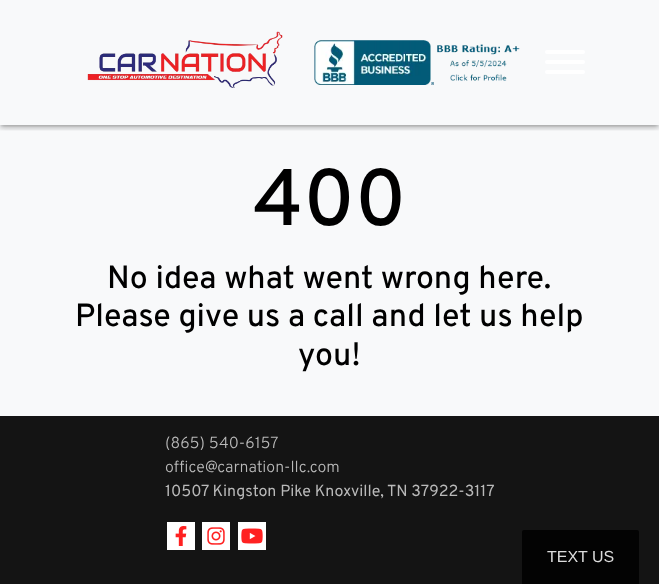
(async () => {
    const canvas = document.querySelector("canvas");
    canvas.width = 659;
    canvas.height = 584;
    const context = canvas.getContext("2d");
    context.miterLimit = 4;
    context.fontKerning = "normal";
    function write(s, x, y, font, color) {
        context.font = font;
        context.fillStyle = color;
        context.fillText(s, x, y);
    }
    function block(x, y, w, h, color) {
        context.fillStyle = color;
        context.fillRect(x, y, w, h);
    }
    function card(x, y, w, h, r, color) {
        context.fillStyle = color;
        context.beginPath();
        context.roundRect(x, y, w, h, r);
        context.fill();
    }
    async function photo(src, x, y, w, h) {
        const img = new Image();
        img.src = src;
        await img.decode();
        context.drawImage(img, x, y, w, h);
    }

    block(0, 0, 659, 584, "rgb(248, 249, 250)");
    context.save();
    context.beginPath();
    context.rect(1, 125, 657, 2);
    context.clip();
    context.fillStyle = "rgba(0, 0, 0, 0.12)";
    context.filter = "blur(1.5px)";
    context.beginPath();
    context.rect(2, 5, 655, 121);
    context.fill();
    context.filter = "none";
    context.restore();
    context.save();
    context.beginPath();
    context.rect(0, 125, 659, 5);
    context.clip();
    context.fillStyle = "rgba(0, 0, 0, 0.14)";
    context.filter = "blur(2px)";
    context.beginPath();
    context.rect(0, 3, 659, 125);
    context.fill();
    context.filter = "none";
    context.restore();
    context.save();
    context.beginPath();
    context.rect(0, 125, 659, 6);
    context.clip();
    context.fillStyle = "rgba(0, 0, 0, 0.2)";
    context.filter = "blur(4px)";
    context.beginPath();
    context.rect(0, 1, 659, 125);
    context.fill();
    context.filter = "none";
    context.restore();
    await photo("media/1.png", 87, 31, 196, 57);
    await photo("media/2.png", 314, 40, 206, 45);
    card(545, 60, 40, 4, 2, "rgb(255, 255, 255)");
    card(545, 50, 40, 4, 2, "rgb(255, 255, 255)");
    card(545, 70, 40, 4, 2, "rgb(255, 255, 255)");
    write("400", 253, 225, "500 80px Overpass", "rgb(0, 0, 0)");
    write("No idea what went wrong here.", 107, 288, "500 32px Overpass", "rgb(0, 0, 0)");
    write("Please give us a call and let us help", 75, 326, "500 32px Overpass", "rgb(0, 0, 0)");
    write("you!", 298, 365, "500 32px Overpass", "rgb(0, 0, 0)");
    block(0, 416, 659, 168, "rgb(20, 20, 20)");
    write("(865) 540-6157", 165, 448, "300 16px Overpass", "rgb(185, 185, 185)");
    write("office@carnation-llc.com", 165, 472, "300 16px Overpass", "rgb(185, 185, 185)");
    write("10507 Kingston Pike Knoxville, TN 37922-3117", 165, 496, "16px Overpass", "rgb(185, 185, 185)");
    block(167, 522, 28, 28, "rgb(255, 255, 255)");
    await photo("media/3.png", 175, 526, 12, 20);
    block(202, 522, 28, 28, "rgb(255, 255, 255)");
    await photo("media/4.png", 207, 527, 18, 18);
    block(238, 522, 28, 28, "rgb(255, 255, 255)");
    await photo("media/5.png", 241, 528, 22, 16);
    context.fillStyle = "rgb(3, 3, 3)";
    context.beginPath();
    context.roundRect(522, 530, 117, 54, [2, 2, 0, 0]);
    context.fill();
    write("TEXT US", 547, 562, "16px Liberation Sans", "rgb(220, 220, 220)");
})();
